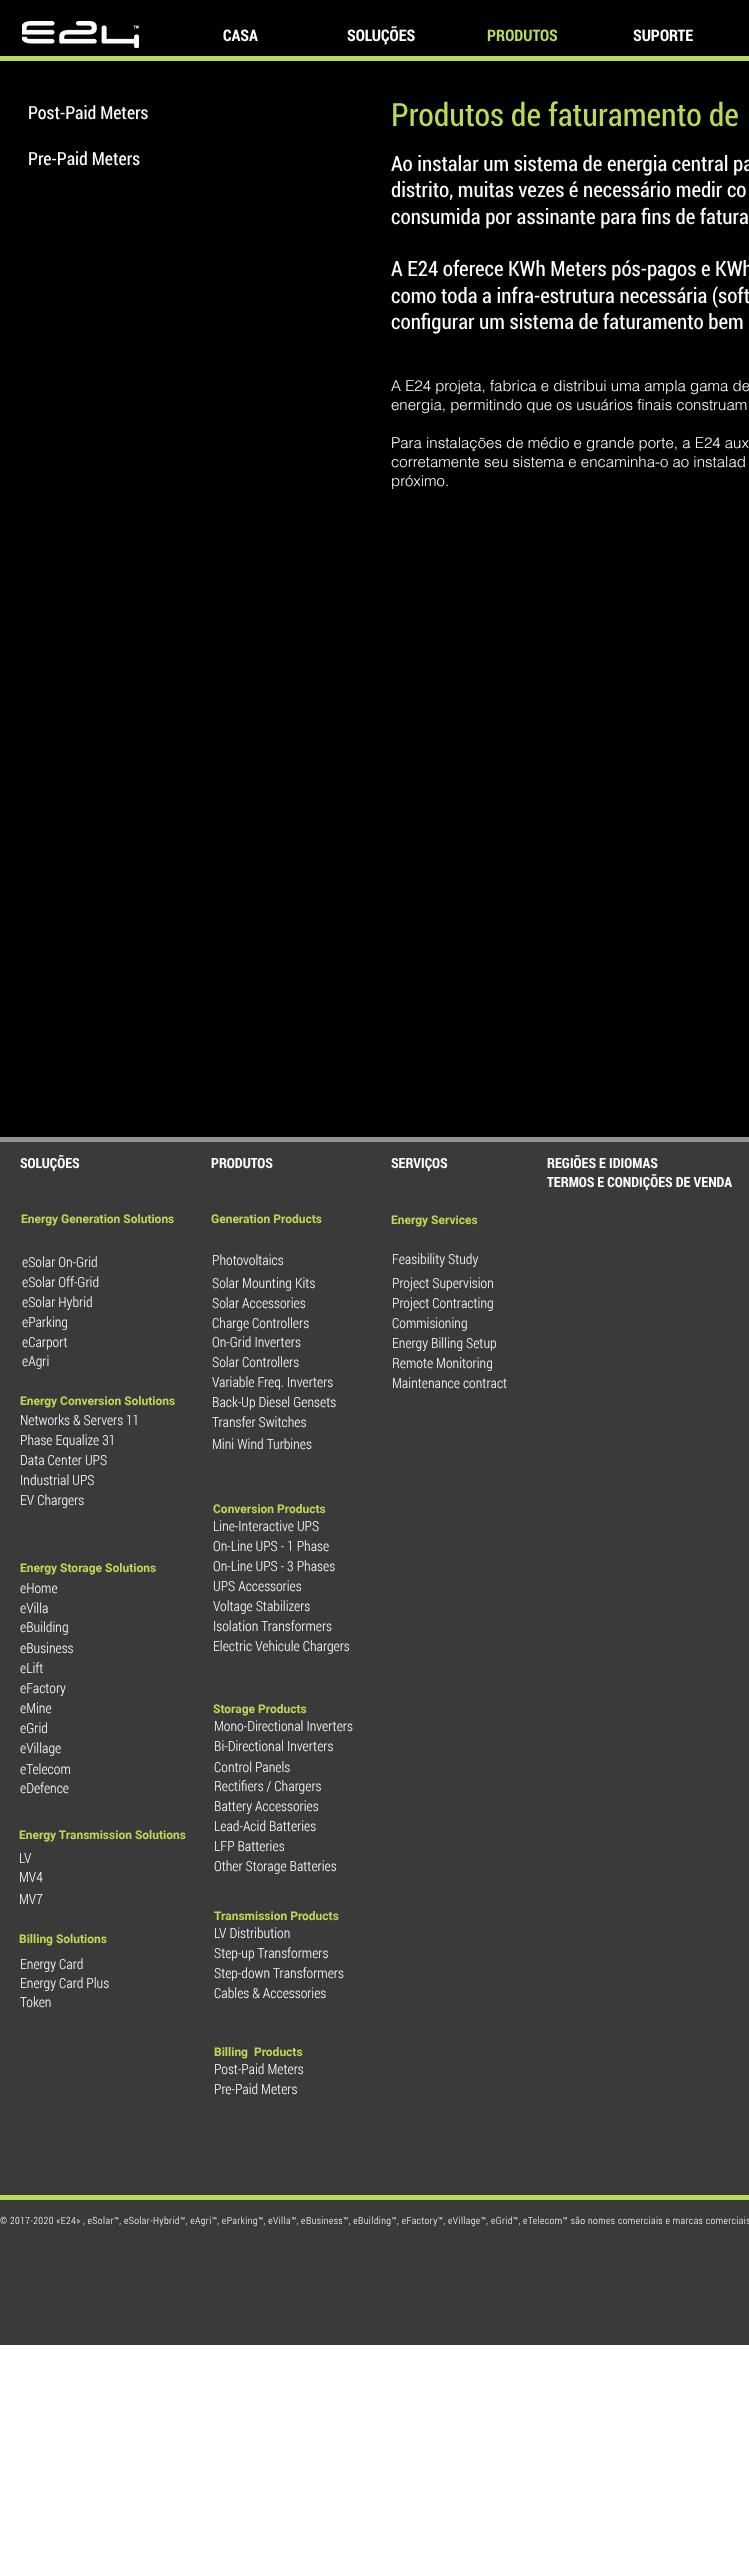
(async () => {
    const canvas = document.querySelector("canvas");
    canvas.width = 749;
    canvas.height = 2574;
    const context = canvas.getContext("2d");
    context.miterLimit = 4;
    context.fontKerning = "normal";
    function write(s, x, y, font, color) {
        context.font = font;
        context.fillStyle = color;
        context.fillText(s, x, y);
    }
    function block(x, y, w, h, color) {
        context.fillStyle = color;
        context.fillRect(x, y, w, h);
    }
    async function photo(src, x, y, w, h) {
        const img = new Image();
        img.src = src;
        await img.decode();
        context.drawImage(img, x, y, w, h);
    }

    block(0, 0, 749, 2574, "rgb(255, 255, 255)");
    block(0, 0, 749, 56, "rgb(0, 0, 0)");
    await photo("media/1.png", 22, 21, 117, 27);
    write("CASA", 223, 41, "bold 16px Roboto Condensed", "rgb(255, 255, 255)");
    write("SOLUÇÕES", 347, 41, "bold 16px Roboto Condensed", "rgb(255, 255, 255)");
    write("PRODUTOS", 487, 41, "bold 16px Roboto Condensed", "rgb(186, 218, 85)");
    write("SUPORTE", 633, 41, "bold 16px Roboto Condensed", "rgb(255, 255, 255)");
    block(0, 56, 749, 5, "rgb(186, 218, 85)");
    block(0, 61, 749, 1076, "rgb(0, 0, 0)");
    write("Post-Paid Meters", 28, 119, "18px Roboto Condensed", "rgb(255, 255, 255)");
    write("Pre-Paid Meters", 28, 165, "18px Roboto Condensed", "rgb(255, 255, 255)");
    write("Produtos de faturamento de", 391, 126, "32px Roboto Condensed", "rgb(186, 218, 85)");
    write("Ao instalar um sistema de energia central pa", 391, 171, "21px Roboto Condensed", "rgb(255, 255, 255)");
    write("distrito, muitas vezes é necessário medir co", 391, 197, "21px Roboto Condensed", "rgb(255, 255, 255)");
    write("consumida por assinante para fins de fatura", 391, 224, "21px Roboto Condensed", "rgb(255, 255, 255)");
    write("A E24 oferece KWh Meters pós-pagos e KWh", 391, 276, "21px Roboto Condensed", "rgb(255, 255, 255)");
    write("como toda a infra-estrutura necessária (soft", 391, 303, "21px Roboto Condensed", "rgb(255, 255, 255)");
    write("configurar um sistema de faturamento bem", 391, 329, "21px Roboto Condensed", "rgb(255, 255, 255)");
    write("A E24 projeta, fabrica e distribui uma ampla gama de", 391, 391, "300 15px helvetica", "rgb(255, 255, 255)");
    write("energia, permitindo que os usuários finais construam", 391, 410, "300 15px helvetica", "rgb(255, 255, 255)");
    write("Para instalações de médio e grande porte, a E24 aux", 391, 448, "300 15px helvetica", "rgb(255, 255, 255)");
    write("corretamente seu sistema e encaminha-o ao instalad", 391, 467, "300 15px helvetica", "rgb(255, 255, 255)");
    write("próximo.", 391, 486, "300 15px helvetica", "rgb(255, 255, 255)");
    block(0, 1142, 749, 1203, "rgb(59, 58, 58)");
    block(0, 1137, 749, 5, "rgb(148, 148, 148)");
    write("SOLUÇÕES", 20, 1168, "bold 14px Roboto Condensed", "rgb(255, 255, 255)");
    write("PRODUTOS", 211, 1168, "bold 14px Roboto Condensed", "rgb(255, 255, 255)");
    write("SERVIÇOS", 391, 1168, "bold 14px Roboto Condensed", "rgb(255, 255, 255)");
    write("REGIÕES E IDIOMAS", 547, 1168, "bold 14px Roboto Condensed", "rgb(255, 255, 255)");
    write("TERMOS E CONDIÇÕES DE VENDA", 547, 1187, "bold 14px Roboto Condensed", "rgb(255, 255, 255)");
    write("Energy Generation Solutions", 21, 1223, "bold 12px Roboto", "rgb(186, 218, 85)");
    write("Generation Products", 211, 1223, "bold 12px Roboto", "rgb(186, 218, 85)");
    write("Energy Services", 391, 1224, "bold 12px Roboto", "rgb(186, 218, 85)");
    write("eSolar On-Grid", 22, 1267, "300 14px Roboto Condensed", "rgb(255, 255, 255)");
    write("Photovoltaics", 212, 1265, "300 14px Roboto Condensed", "rgb(255, 255, 255)");
    write("Feasibility Study", 392, 1264, "300 14px Roboto Condensed", "rgb(255, 255, 255)");
    write("eSolar Off-Grid", 22, 1287, "300 14px Roboto Condensed", "rgb(255, 255, 255)");
    write("Solar Mounting Kits", 212, 1288, "300 14px Roboto Condensed", "rgb(255, 255, 255)");
    write("Project Supervision", 392, 1288, "300 14px Roboto Condensed", "rgb(255, 255, 255)");
    write("eSolar Hybrid", 22, 1307, "300 14px Roboto Condensed", "rgb(255, 255, 255)");
    write("Solar Accessories", 212, 1308, "300 14px Roboto Condensed", "rgb(255, 255, 255)");
    write("Project Contracting", 392, 1308, "300 14px Roboto Condensed", "rgb(255, 255, 255)");
    write("eParking", 22, 1327, "300 14px Roboto Condensed", "rgb(255, 255, 255)");
    write("Charge Controllers", 212, 1328, "300 14px Roboto Condensed", "rgb(255, 255, 255)");
    write("Commisioning", 392, 1328, "300 14px Roboto Condensed", "rgb(255, 255, 255)");
    write("eCarport", 22, 1347, "300 14px Roboto Condensed", "rgb(255, 255, 255)");
    write("On-Grid Inverters", 212, 1347, "300 14px Roboto Condensed", "rgb(255, 255, 255)");
    write("Energy Billing Setup", 392, 1348, "300 14px Roboto Condensed", "rgb(255, 255, 255)");
    write("eAgri", 22, 1366, "300 14px Roboto Condensed", "rgb(255, 255, 255)");
    write("Solar Controllers", 212, 1367, "300 14px Roboto Condensed", "rgb(255, 255, 255)");
    write("Remote Monitoring", 392, 1368, "300 14px Roboto Condensed", "rgb(255, 255, 255)");
    write("Variable Freq. Inverters", 212, 1387, "300 14px Roboto Condensed", "rgb(255, 255, 255)");
    write("Maintenance contract", 392, 1388, "300 14px Roboto Condensed", "rgb(255, 255, 255)");
    write("Energy Conversion Solutions", 20, 1405, "bold 12px Roboto", "rgb(186, 218, 85)");
    write("Networks & Servers 11", 20, 1425, "300 14px Roboto Condensed", "rgb(255, 255, 255)");
    write("Phase Equalize 31", 20, 1445, "300 14px Roboto Condensed", "rgb(255, 255, 255)");
    write("Data Center UPS", 20, 1465, "300 14px Roboto Condensed", "rgb(255, 255, 255)");
    write("Industrial UPS", 20, 1485, "300 14px Roboto Condensed", "rgb(255, 255, 255)");
    write("EV Chargers", 20, 1505, "300 14px Roboto Condensed", "rgb(255, 255, 255)");
    write("Back-Up Diesel Gensets", 212, 1407, "300 14px Roboto Condensed", "rgb(255, 255, 255)");
    write("Transfer Switches", 212, 1427, "300 14px Roboto Condensed", "rgb(255, 255, 255)");
    write("Mini Wind Turbines", 212, 1449, "300 14px Roboto Condensed", "rgb(255, 255, 255)");
    write("Energy Storage Solutions", 20, 1572, "bold 12px Roboto", "rgb(186, 218, 85)");
    write("eHome", 20, 1593, "300 14px Roboto Condensed", "rgb(255, 255, 255)");
    write("eVilla", 20, 1613, "300 14px Roboto Condensed", "rgb(255, 255, 255)");
    write("eBuilding", 20, 1632, "300 14px Roboto Condensed", "rgb(255, 255, 255)");
    write("eBusiness", 20, 1653, "300 14px Roboto Condensed", "rgb(255, 255, 255)");
    write("eLift", 20, 1673, "300 14px Roboto Condensed", "rgb(255, 255, 255)");
    write("eFactory", 20, 1693, "300 14px Roboto Condensed", "rgb(255, 255, 255)");
    write("eMine", 20, 1713, "300 14px Roboto Condensed", "rgb(255, 255, 255)");
    write("eGrid", 20, 1733, "300 14px Roboto Condensed", "rgb(255, 255, 255)");
    write("eVillage", 20, 1753, "300 14px Roboto Condensed", "rgb(255, 255, 255)");
    write("eTelecom", 20, 1774, "300 14px Roboto Condensed", "rgb(255, 255, 255)");
    write("eDefence", 20, 1793, "300 14px Roboto Condensed", "rgb(255, 255, 255)");
    write("Conversion Products", 213, 1513, "bold 12px Roboto", "rgb(186, 218, 85)");
    write("Line-Interactive UPS", 213, 1531, "300 14px Roboto Condensed", "rgb(255, 255, 255)");
    write("On-Line UPS - 1 Phase", 213, 1551, "300 14px Roboto Condensed", "rgb(255, 255, 255)");
    write("On-Line UPS - 3 Phases", 213, 1571, "300 14px Roboto Condensed", "rgb(255, 255, 255)");
    write("UPS Accessories", 213, 1591, "300 14px Roboto Condensed", "rgb(255, 255, 255)");
    write("Voltage Stabilizers", 213, 1611, "300 14px Roboto Condensed", "rgb(255, 255, 255)");
    write("Isolation Transformers", 213, 1631, "300 14px Roboto Condensed", "rgb(255, 255, 255)");
    write("Electric Vehicule Chargers", 213, 1651, "300 14px Roboto Condensed", "rgb(255, 255, 255)");
    write("Energy Transmission Solutions", 19, 1839, "bold 12px Roboto", "rgb(186, 218, 85)");
    write("LV", 19, 1863, "300 14px Roboto Condensed", "rgb(255, 255, 255)");
    write("MV4", 19, 1882, "300 14px Roboto Condensed", "rgb(255, 255, 255)");
    write("MV7", 19, 1904, "300 14px Roboto Condensed", "rgb(255, 255, 255)");
    write("Storage Products", 213, 1713, "bold 12px Roboto", "rgb(186, 218, 85)");
    write("Mono-Directional Inverters", 214, 1731, "300 14px Roboto Condensed", "rgb(255, 255, 255)");
    write("Bi-Directional Inverters", 214, 1751, "300 14px Roboto Condensed", "rgb(255, 255, 255)");
    write("Control Panels", 214, 1772, "300 14px Roboto Condensed", "rgb(255, 255, 255)");
    write("Rectifiers / Chargers", 214, 1791, "300 14px Roboto Condensed", "rgb(255, 255, 255)");
    write("Battery Accessories", 214, 1811, "300 14px Roboto Condensed", "rgb(255, 255, 255)");
    write("Lead-Acid Batteries", 214, 1831, "300 14px Roboto Condensed", "rgb(255, 255, 255)");
    write("LFP Batteries", 214, 1851, "300 14px Roboto Condensed", "rgb(255, 255, 255)");
    write("Other Storage Batteries", 214, 1871, "300 14px Roboto Condensed", "rgb(255, 255, 255)");
    write("Billing Solutions", 19, 1943, "bold 12px Roboto", "rgb(186, 218, 85)");
    write("Energy Card", 20, 1969, "300 14px Roboto Condensed", "rgb(255, 255, 255)");
    write("Energy Card Plus", 20, 1988, "300 14px Roboto Condensed", "rgb(255, 255, 255)");
    write("Token", 20, 2007, "300 14px Roboto Condensed", "rgb(255, 255, 255)");
    write("Transmission Products", 214, 1920, "bold 12px Roboto", "rgb(186, 218, 85)");
    write("LV Distribution", 214, 1938, "300 14px Roboto Condensed", "rgb(255, 255, 255)");
    write("Step-up Transformers", 214, 1958, "300 14px Roboto Condensed", "rgb(255, 255, 255)");
    write("Step-down Transformers", 214, 1978, "300 14px Roboto Condensed", "rgb(255, 255, 255)");
    write("Cables & Accessories", 214, 1998, "300 14px Roboto Condensed", "rgb(255, 255, 255)");
    write("Billing  Products", 214, 2056, "bold 12px Roboto", "rgb(186, 218, 85)");
    write("Post-Paid Meters", 214, 2074, "300 14px Roboto Condensed", "rgb(255, 255, 255)");
    write("Pre-Paid Meters", 214, 2094, "300 14px Roboto Condensed", "rgb(255, 255, 255)");
    block(0, 2195, 749, 5, "rgb(186, 218, 85)");
    context.letterSpacing = "0.4px";
    write("© 2017-2020 «E24» , eSolar™, eSolar-Hybrid™, eAgri™, eParking™, eVilla™, eBusiness™, eBuilding™, eFactory™, eVillage™, eGrid™, eTelecom™ são nomes comerciais e marcas comerciais", 0, 2224, "300 10px Roboto Condensed", "rgb(255, 255, 255)");
})();
